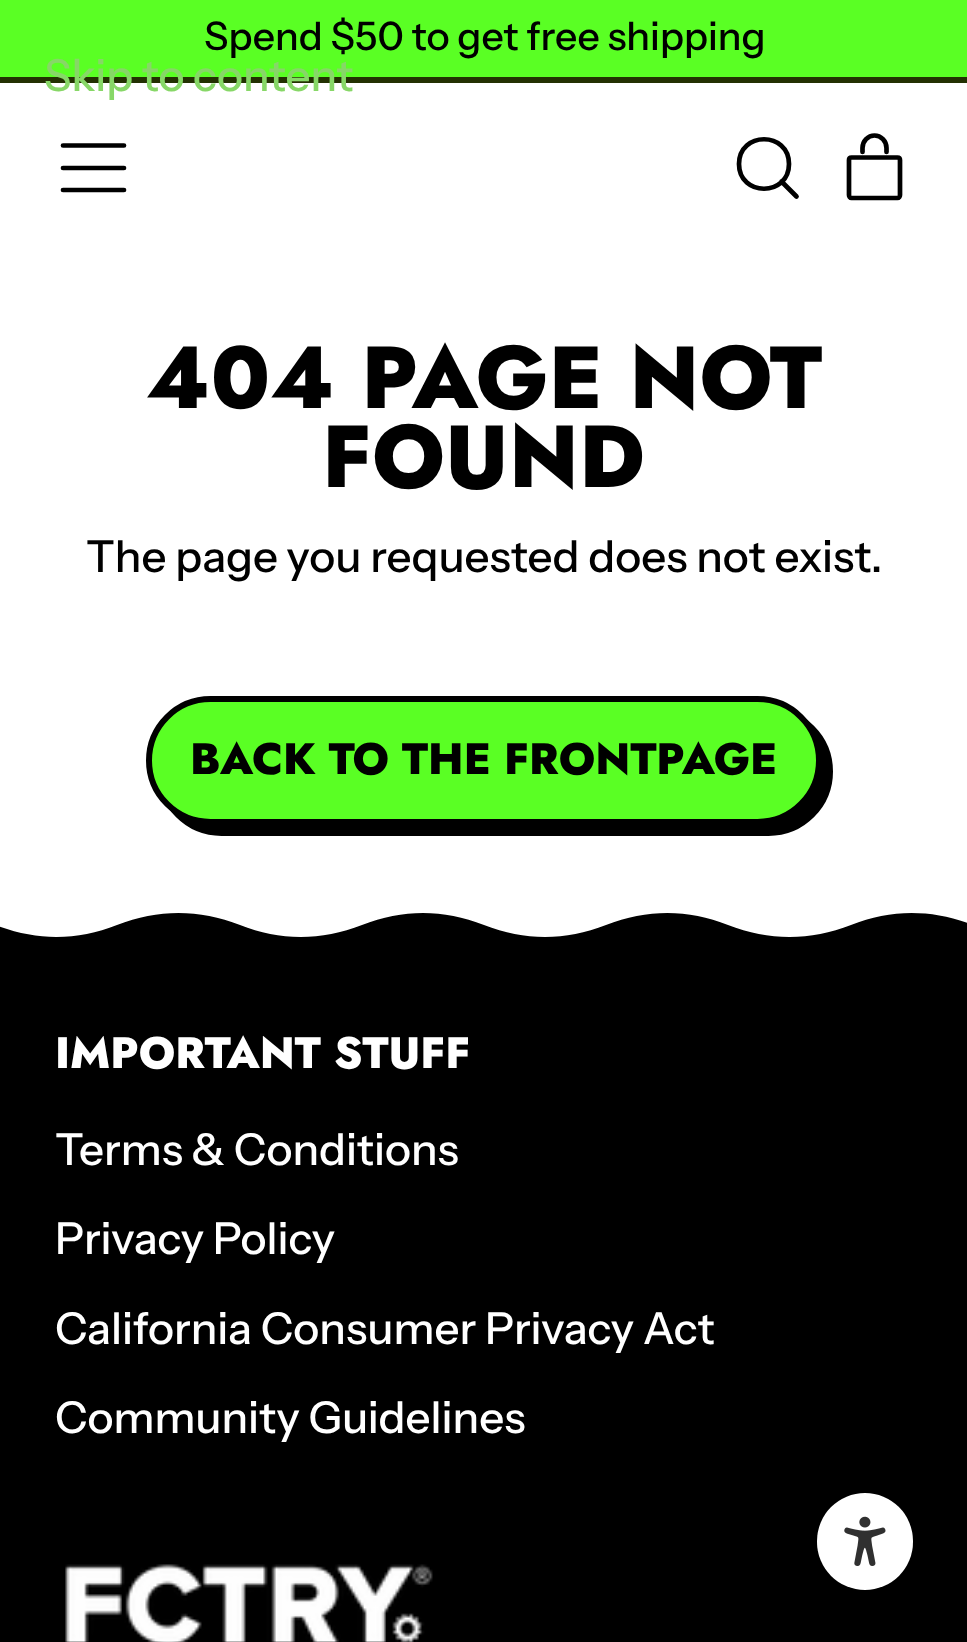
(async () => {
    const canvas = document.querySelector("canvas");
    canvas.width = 967;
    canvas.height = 1642;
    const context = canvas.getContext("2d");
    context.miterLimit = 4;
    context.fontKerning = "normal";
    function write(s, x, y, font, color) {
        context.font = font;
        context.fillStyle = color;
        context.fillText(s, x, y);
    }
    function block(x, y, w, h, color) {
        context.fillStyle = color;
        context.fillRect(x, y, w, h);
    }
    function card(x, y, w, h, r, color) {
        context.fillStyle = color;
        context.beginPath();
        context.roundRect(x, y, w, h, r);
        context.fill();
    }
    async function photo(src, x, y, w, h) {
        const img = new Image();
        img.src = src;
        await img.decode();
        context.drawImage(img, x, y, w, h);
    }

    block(0, 0, 967, 1642, "rgb(255, 255, 255)");
    block(0, 77, 967, 6, "rgb(35, 49, 2)");
    block(0, 0, 967, 77, "rgb(90, 255, 36)");
    write("Spend $50 to get free shipping", 204, 50, "500 39.25px Instrument Sans", "rgb(0, 0, 0)");
    write("Skip to content", 44, 91, "500 44px Instrument Sans", "rgb(135, 215, 103)");
    context.beginPath();
    context.moveTo(124, 190);
    context.lineTo(63, 190);
    context.moveTo(124, 168);
    context.lineTo(63, 168);
    context.moveTo(124, 145.5);
    context.lineTo(63, 145.5);
    context.strokeStyle = "rgb(0, 0, 0)";
    context.lineWidth = 4.7;
    context.lineCap = "round";
    context.lineJoin = "round";
    context.stroke();
    context.beginPath();
    context.moveTo(739, 164);
    context.bezierCurveTo(739, 197, 789, 197, 789, 164);
    context.bezierCurveTo(789, 131, 739, 131, 739, 164);
    context.closePath();
    context.moveTo(796.5, 196.5);
    context.lineTo(781.5, 181.5);
    context.stroke();
    context.beginPath();
    context.moveTo(897.5, 157.5);
    context.lineTo(851.5, 157.5);
    context.bezierCurveTo(850, 157.5, 849, 158.5, 849, 160);
    context.lineTo(849, 195);
    context.bezierCurveTo(849, 196.5, 850, 198, 851.5, 198);
    context.lineTo(897.5, 198);
    context.bezierCurveTo(899, 198, 900, 196.5, 900, 195);
    context.lineTo(900, 160);
    context.bezierCurveTo(900, 158.5, 899, 157.5, 897.5, 157.5);
    context.closePath();
    context.moveTo(862.5, 152);
    context.lineTo(862.5, 148);
    context.bezierCurveTo(862.5, 141, 868, 135.5, 874.5, 135.5);
    context.bezierCurveTo(881, 135.5, 886.5, 141, 886.5, 148);
    context.lineTo(886.5, 152);
    context.stroke();
    write("404 PAGE NOT", 146, 408, "800 88px Jost", "rgb(0, 0, 0)");
    write("FOUND", 322, 487, "800 88px Jost", "rgb(0, 0, 0)");
    write("The page you requested does not exist.", 86, 572, "500 44px Instrument Sans", "rgb(0, 0, 0)");
    context.beginPath();
    context.roundRect(160, 710, 670, 123, 61.5);
    context.fill();
    context.lineWidth = 6;
    context.lineJoin = "miter";
    context.stroke();
    context.fillStyle = "rgb(90, 255, 36)";
    context.beginPath();
    context.roundRect(149, 699, 670, 123, 61.5);
    context.fill();
    context.stroke();
    write("BACK TO THE FRONTPAGE", 190, 774, "800 44px Jost", "rgb(0, 0, 0)");
    block(0, 913, 967, 729, "rgb(0, 0, 0)");
    context.save();
    context.beginPath();
    context.rect(0, 913, 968, 28);
    context.clip();
    context.fillStyle = "rgb(255, 255, 255)";
    context.beginPath();
    context.moveTo(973, 925);
    context.bezierCurveTo(932, 909, 891, 909, 851, 925);
    context.bezierCurveTo(810, 941, 769, 941, 728, 925);
    context.bezierCurveTo(688, 909, 647, 909, 606, 925);
    context.bezierCurveTo(565, 941, 525, 941, 484, 925);
    context.bezierCurveTo(443, 909, 403, 909, 362, 925);
    context.bezierCurveTo(321, 941, 280, 941, 240, 925);
    context.bezierCurveTo(199, 909, 158, 909, 117, 925);
    context.bezierCurveTo(77, 941, 36, 941, -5, 925);
    context.lineTo(-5, 906);
    context.lineTo(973, 906);
    context.closePath();
    context.fill();
    context.restore();
    write("IMPORTANT STUFF", 55, 1068, "800 44px Jost", "rgb(255, 255, 255)");
    write("Terms & Conditions", 55, 1165, "500 44px Instrument Sans", "rgb(255, 255, 255)");
    write("Privacy Policy", 55, 1254, "500 44px Instrument Sans", "rgb(255, 255, 255)");
    write("California Consumer Privacy Act", 55, 1344, "500 44px Instrument Sans", "rgb(255, 255, 255)");
    write("Community Guidelines", 55, 1433, "500 44px Instrument Sans", "rgb(255, 255, 255)");
    await photo("media/1.png", 65, 1564, 368, 78);
    card(817, 1493, 96, 97, 48, "rgb(255, 255, 255)");
    await photo("media/2.png", 844, 1516, 42, 50);
})();
